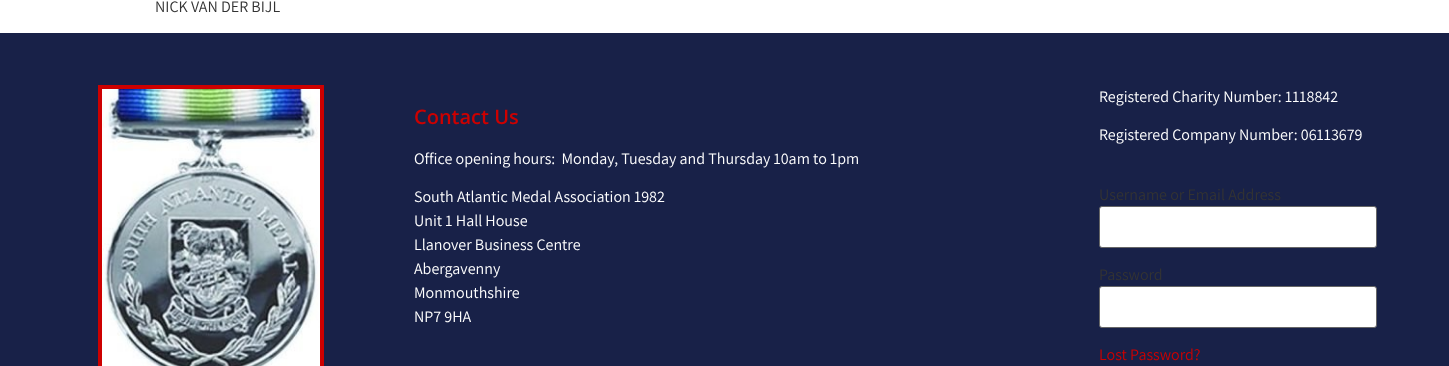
(async () => {
    const canvas = document.querySelector("canvas");
    canvas.width = 1449;
    canvas.height = 366;
    const context = canvas.getContext("2d");
    context.miterLimit = 4;
    context.fontKerning = "normal";
    function write(s, x, y, font, color) {
        context.font = font;
        context.fillStyle = color;
        context.fillText(s, x, y);
    }
    function block(x, y, w, h, color) {
        context.fillStyle = color;
        context.fillRect(x, y, w, h);
    }
    async function photo(src, x, y, w, h) {
        const img = new Image();
        img.src = src;
        await img.decode();
        context.drawImage(img, x, y, w, h);
    }

    block(0, 0, 1449, 366, "rgb(255, 255, 255)");
    write("NICK VAN DER BIJL", 155, 12, "16px Assistant", "rgb(51, 51, 51)");
    block(0, 33, 1449, 333, "rgb(24, 33, 72)");
    context.strokeStyle = "rgb(205, 0, 0)";
    context.lineWidth = 4;
    context.strokeRect(100, 87, 222, 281);
    await photo("media/1.png", 102, 89, 218, 277);
    write("Contact Us", 414, 124, "600 20px Open Sans", "rgb(205, 0, 0)");
    write("Office opening hours:  Monday, Tuesday and Thursday 10am to 1pm", 414, 164, "16px Assistant", "rgb(255, 255, 255)");
    write("South Atlantic Medal Association 1982", 414, 202, "16px Assistant", "rgb(255, 255, 255)");
    write("Unit 1 Hall House", 414, 226, "16px Assistant", "rgb(255, 255, 255)");
    write("Llanover Business Centre", 414, 250, "16px Assistant", "rgb(255, 255, 255)");
    write("Abergavenny", 414, 274, "16px Assistant", "rgb(255, 255, 255)");
    write("Monmouthshire", 414, 298, "16px Assistant", "rgb(255, 255, 255)");
    write("NP7 9HA", 414, 322, "16px Assistant", "rgb(255, 255, 255)");
    write("Registered Charity Number: 1118842", 1099, 102, "16px Assistant", "rgb(255, 255, 255)");
    write("Registered Company Number: 06113679", 1099, 140, "16px Assistant", "rgb(255, 255, 255)");
    write("Username or Email Address", 1099, 200, "16px Assistant", "rgb(51, 51, 51)");
    context.fillStyle = "rgb(255, 255, 255)";
    context.beginPath();
    context.roundRect(1099.5, 206.5, 277, 41, 2.5);
    context.fill();
    context.strokeStyle = "rgb(102, 102, 102)";
    context.lineWidth = 1;
    context.stroke();
    write("Password", 1099, 280, "16px Assistant", "rgb(51, 51, 51)");
    context.fillStyle = "rgb(255, 255, 255)";
    context.beginPath();
    context.roundRect(1099.5, 286.5, 277, 41, 2.5);
    context.fill();
    context.stroke();
    write("Lost Password?", 1099, 360, "16px Assistant", "rgb(205, 0, 0)");
})();
